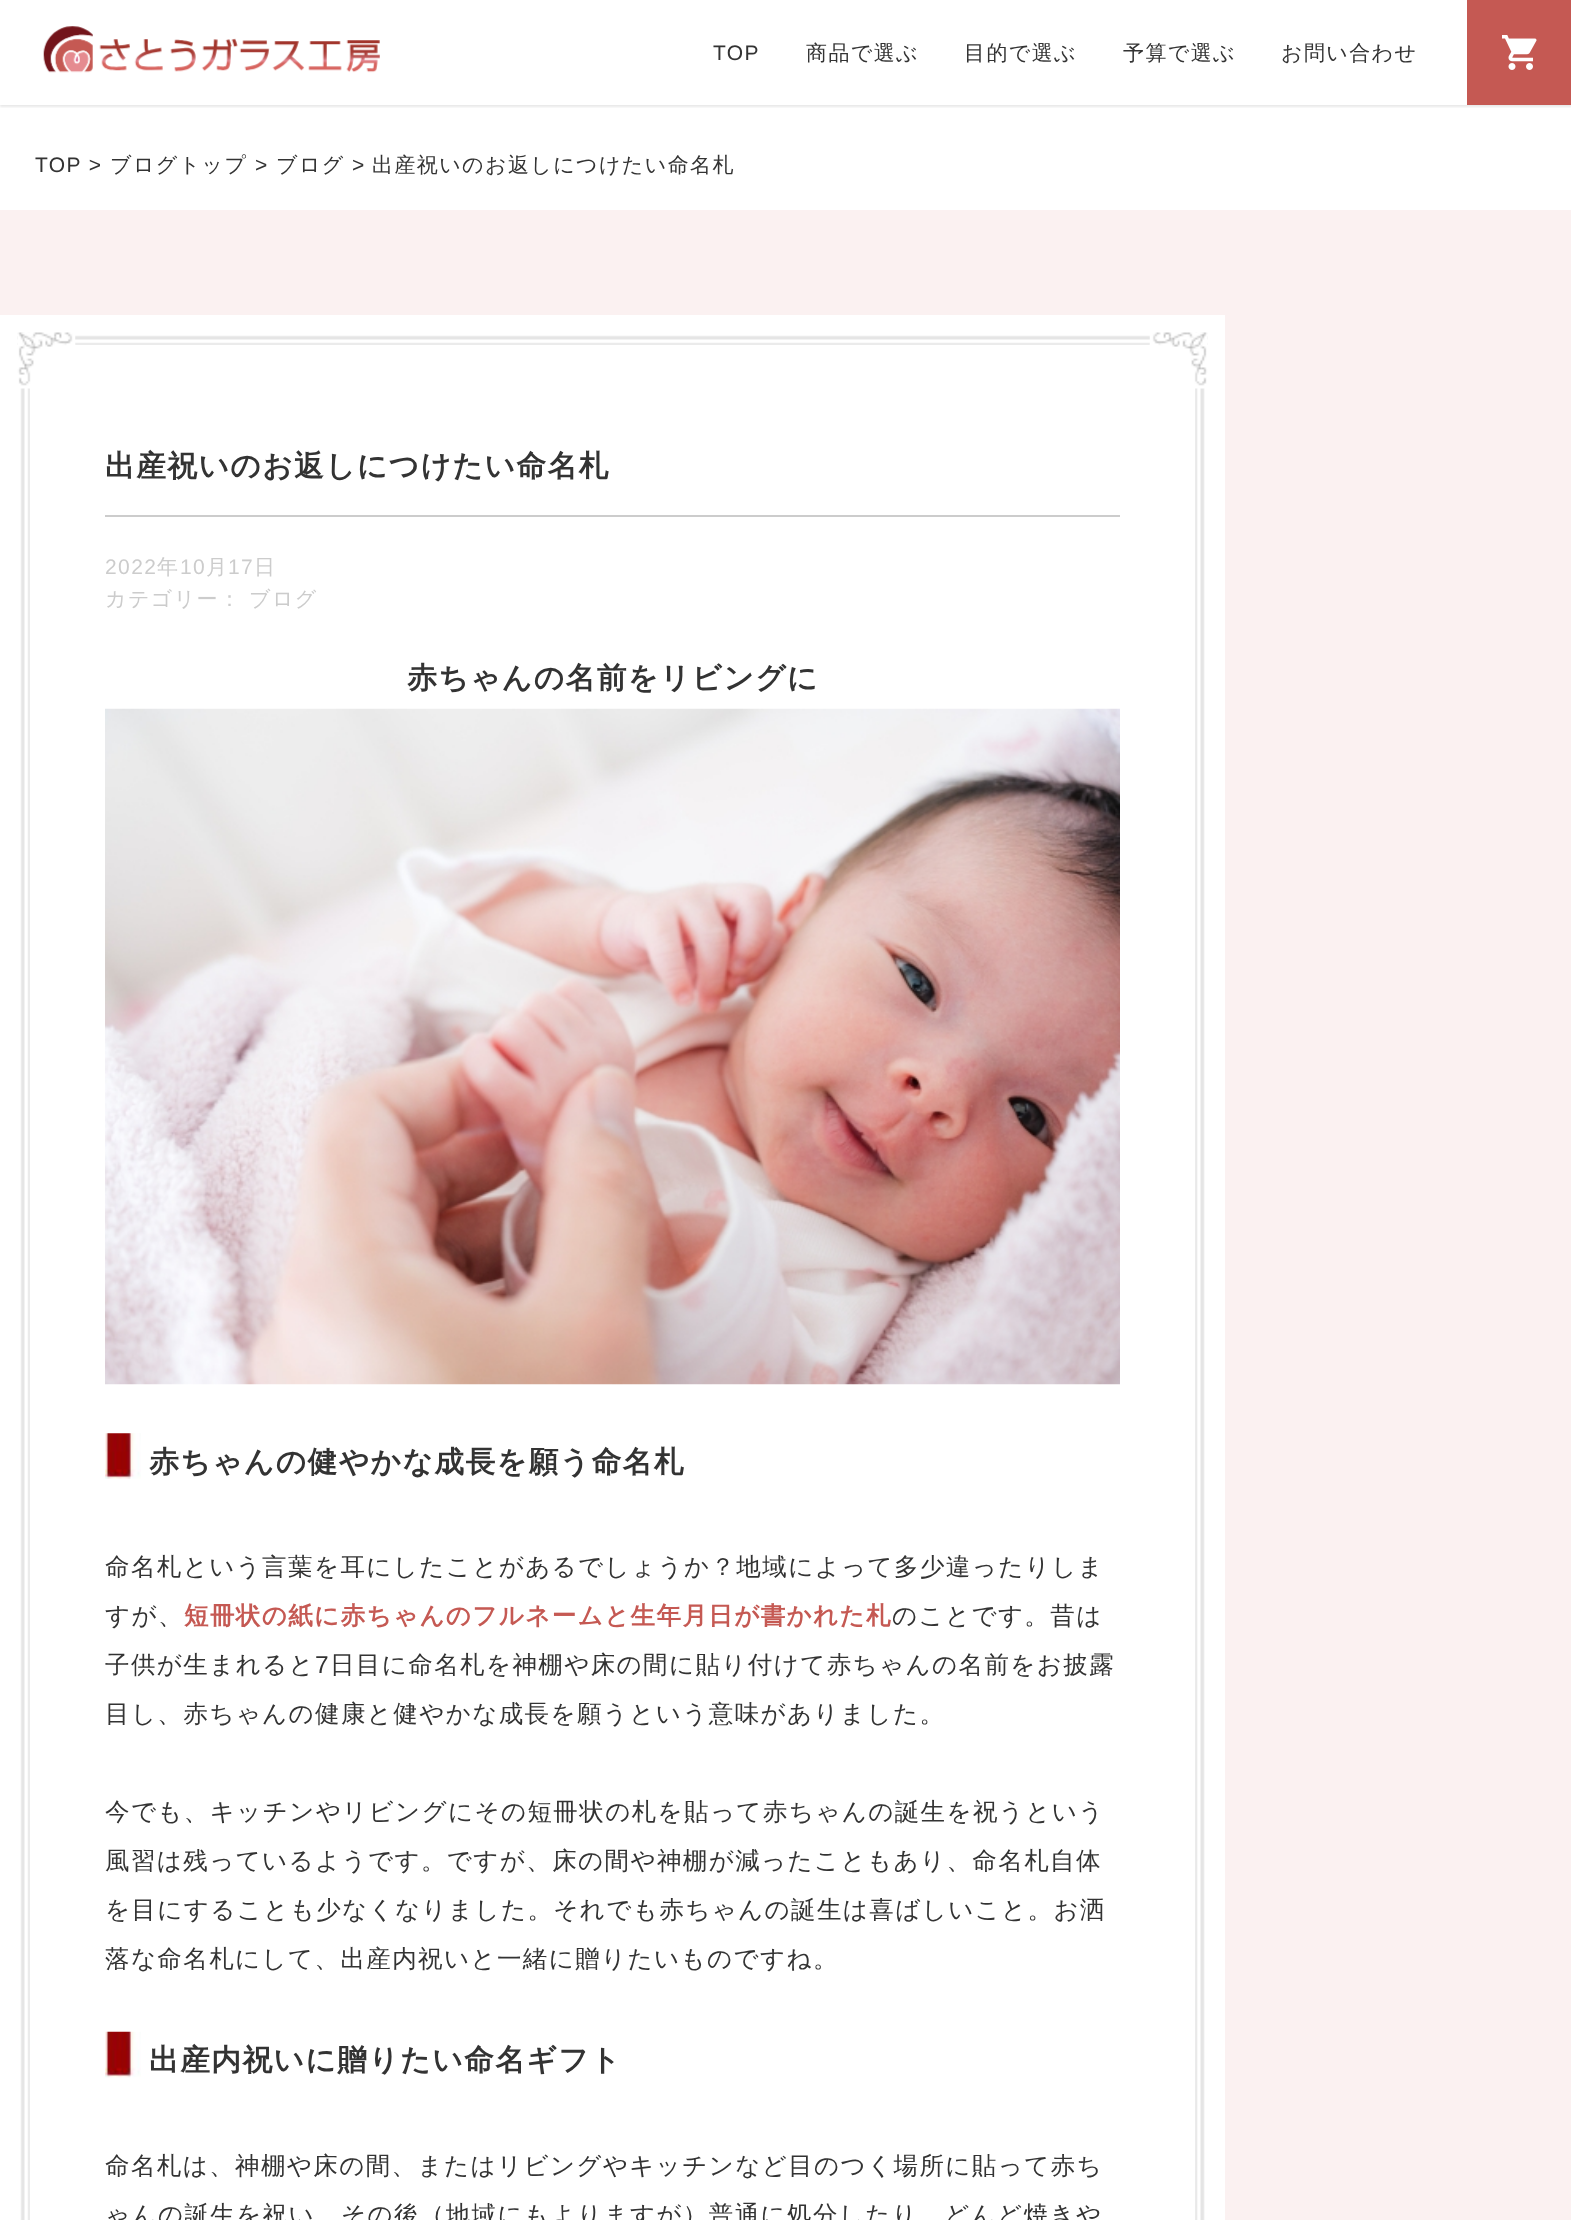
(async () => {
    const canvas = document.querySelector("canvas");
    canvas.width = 1571;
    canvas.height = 2220;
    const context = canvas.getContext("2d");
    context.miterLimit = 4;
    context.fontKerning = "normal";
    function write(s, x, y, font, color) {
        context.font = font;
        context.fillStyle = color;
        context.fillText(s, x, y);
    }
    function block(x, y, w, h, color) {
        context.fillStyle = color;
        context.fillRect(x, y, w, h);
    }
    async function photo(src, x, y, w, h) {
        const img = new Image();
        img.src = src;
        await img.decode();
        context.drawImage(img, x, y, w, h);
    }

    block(0, 0, 1571, 2220, "rgb(251, 241, 241)");
    block(0, 0, 1571, 210, "rgb(255, 255, 255)");
    context.save();
    context.beginPath();
    context.rect(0, 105, 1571, 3);
    context.clip();
    context.fillStyle = "rgba(33, 33, 33, 0.1)";
    context.filter = "blur(1px)";
    context.beginPath();
    context.rect(0, 2, 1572, 105);
    context.fill();
    context.filter = "none";
    context.restore();
    await photo("media/1.png", 43, 26, 337, 47);
    context.letterSpacing = "1.4px";
    write("TOP", 713, 60, "21px Liberation Sans", "rgb(51, 51, 51)");
    write("商品で選ぶ", 806, 60, "500 21px WenQuanYi Zen Hei", "rgb(51, 51, 51)");
    write("目的で選ぶ", 964, 60, "500 21px WenQuanYi Zen Hei", "rgb(51, 51, 51)");
    write("予算で選ぶ", 1123, 60, "500 21px WenQuanYi Zen Hei", "rgb(51, 51, 51)");
    write("お問い合わせ", 1281, 60, "500 21px WenQuanYi Zen Hei", "rgb(51, 51, 51)");
    block(1467, 0, 104, 105, "rgb(197, 89, 83)");
    await photo("media/2.png", 1502, 35, 35, 35);
    write("TOP >", 35, 172, "21px Liberation Sans", "rgb(51, 51, 51)");
    write("ブログトップ", 110, 172, "500 21px WenQuanYi Zen Hei", "rgb(51, 51, 51)");
    write(">", 255, 172, "21px Liberation Sans", "rgb(51, 51, 51)");
    write("ブログ", 276, 172, "500 21px WenQuanYi Zen Hei", "rgb(51, 51, 51)");
    write(">", 352, 172, "21px Liberation Sans", "rgb(51, 51, 51)");
    write("出産祝いのお返しにつけたい命名札", 372, 172, "500 21px WenQuanYi Zen Hei", "rgb(51, 51, 51)");
    block(0, 315, 1225, 1905, "rgb(255, 255, 255)");
    await photo("media/3.png", 17, 332, 1191, 1888);
    block(105, 515, 1015, 2, "rgb(204, 204, 204)");
    write("出産祝いのお返しにつけたい命名札", 105, 476, "bold 29.75px WenQuanYi Zen Hei", "rgb(51, 51, 51)");
    write("2022", 105, 574, "21px Liberation Sans", "rgb(204, 204, 204)");
    write("年", 157, 574, "500 21px WenQuanYi Zen Hei", "rgb(204, 204, 204)");
    write("10", 180, 574, "21px Liberation Sans", "rgb(204, 204, 204)");
    write("月", 206, 574, "500 21px WenQuanYi Zen Hei", "rgb(204, 204, 204)");
    write("17", 228, 574, "21px Liberation Sans", "rgb(204, 204, 204)");
    write("日", 254, 574, "500 21px WenQuanYi Zen Hei", "rgb(204, 204, 204)");
    write("カテゴリー：", 105, 606, "500 21px WenQuanYi Zen Hei", "rgb(204, 204, 204)");
    write("ブログ", 249, 606, "500 21px WenQuanYi Zen Hei", "rgb(204, 204, 204)");
    write("赤ちゃんの名前をリビングに", 407, 688, "bold 29.75px WenQuanYi Zen Hei", "rgb(51, 51, 51)");
    await photo("media/4.png", 105, 708, 1015, 677);
    await photo("media/5.png", 105, 1433, 36, 46);
    write("赤ちゃんの健やかな成長を願う命名札", 149, 1472, "bold 29.75px WenQuanYi Zen Hei", "rgb(51, 51, 51)");
    write("命名札という言葉を耳にしたことがあるでしょうか？地域によって多少違ったりしま", 105, 1575, "500 24.5px WenQuanYi Zen Hei", "rgb(51, 51, 51)");
    write("すが、", 105, 1624, "500 24.5px WenQuanYi Zen Hei", "rgb(51, 51, 51)");
    write("短冊状の紙に赤ちゃんのフルネームと生年月日が書かれた札", 184, 1624, "bold 24.5px WenQuanYi Zen Hei", "rgb(197, 89, 83)");
    write("のことです。昔は", 892, 1624, "500 24.5px WenQuanYi Zen Hei", "rgb(51, 51, 51)");
    write("子供が生まれると", 105, 1673, "500 24.5px WenQuanYi Zen Hei", "rgb(51, 51, 51)");
    write("7", 315, 1673, "24.5px Liberation Sans", "rgb(51, 51, 51)");
    write("日目に命名札を神棚や床の間に貼り付けて赤ちゃんの名前をお披露", 330, 1673, "500 24.5px WenQuanYi Zen Hei", "rgb(51, 51, 51)");
    write("目し、赤ちゃんの健康と健やかな成長を願うという意味がありました。", 105, 1722, "500 24.5px WenQuanYi Zen Hei", "rgb(51, 51, 51)");
    write("今でも、キッチンやリビングにその短冊状の札を貼って赤ちゃんの誕生を祝うという", 105, 1820, "500 24.5px WenQuanYi Zen Hei", "rgb(51, 51, 51)");
    write("風習は残っているようです。ですが、床の間や神棚が減ったこともあり、命名札自体", 105, 1869, "500 24.5px WenQuanYi Zen Hei", "rgb(51, 51, 51)");
    write("を目にすることも少なくなりました。それでも赤ちゃんの誕生は喜ばしいこと。お洒", 105, 1918, "500 24.5px WenQuanYi Zen Hei", "rgb(51, 51, 51)");
    write("落な命名札にして、出産内祝いと一緒に贈りたいものですね。", 105, 1967, "500 24.5px WenQuanYi Zen Hei", "rgb(51, 51, 51)");
    await photo("media/6.png", 105, 2031, 36, 47);
    write("出産内祝いに贈りたい命名ギフト", 149, 2070, "bold 29.75px WenQuanYi Zen Hei", "rgb(51, 51, 51)");
    write("命名札は、神棚や床の間、またはリビングやキッチンなど目のつく場所に貼って赤ち", 105, 2174, "500 24.5px WenQuanYi Zen Hei", "rgb(51, 51, 51)");
    write("ゃんの誕生を祝い、その後（地域にもよりますが）普通に処分したり、どんど焼きや", 105, 2223, "500 24.5px WenQuanYi Zen Hei", "rgb(51, 51, 51)");
})();
